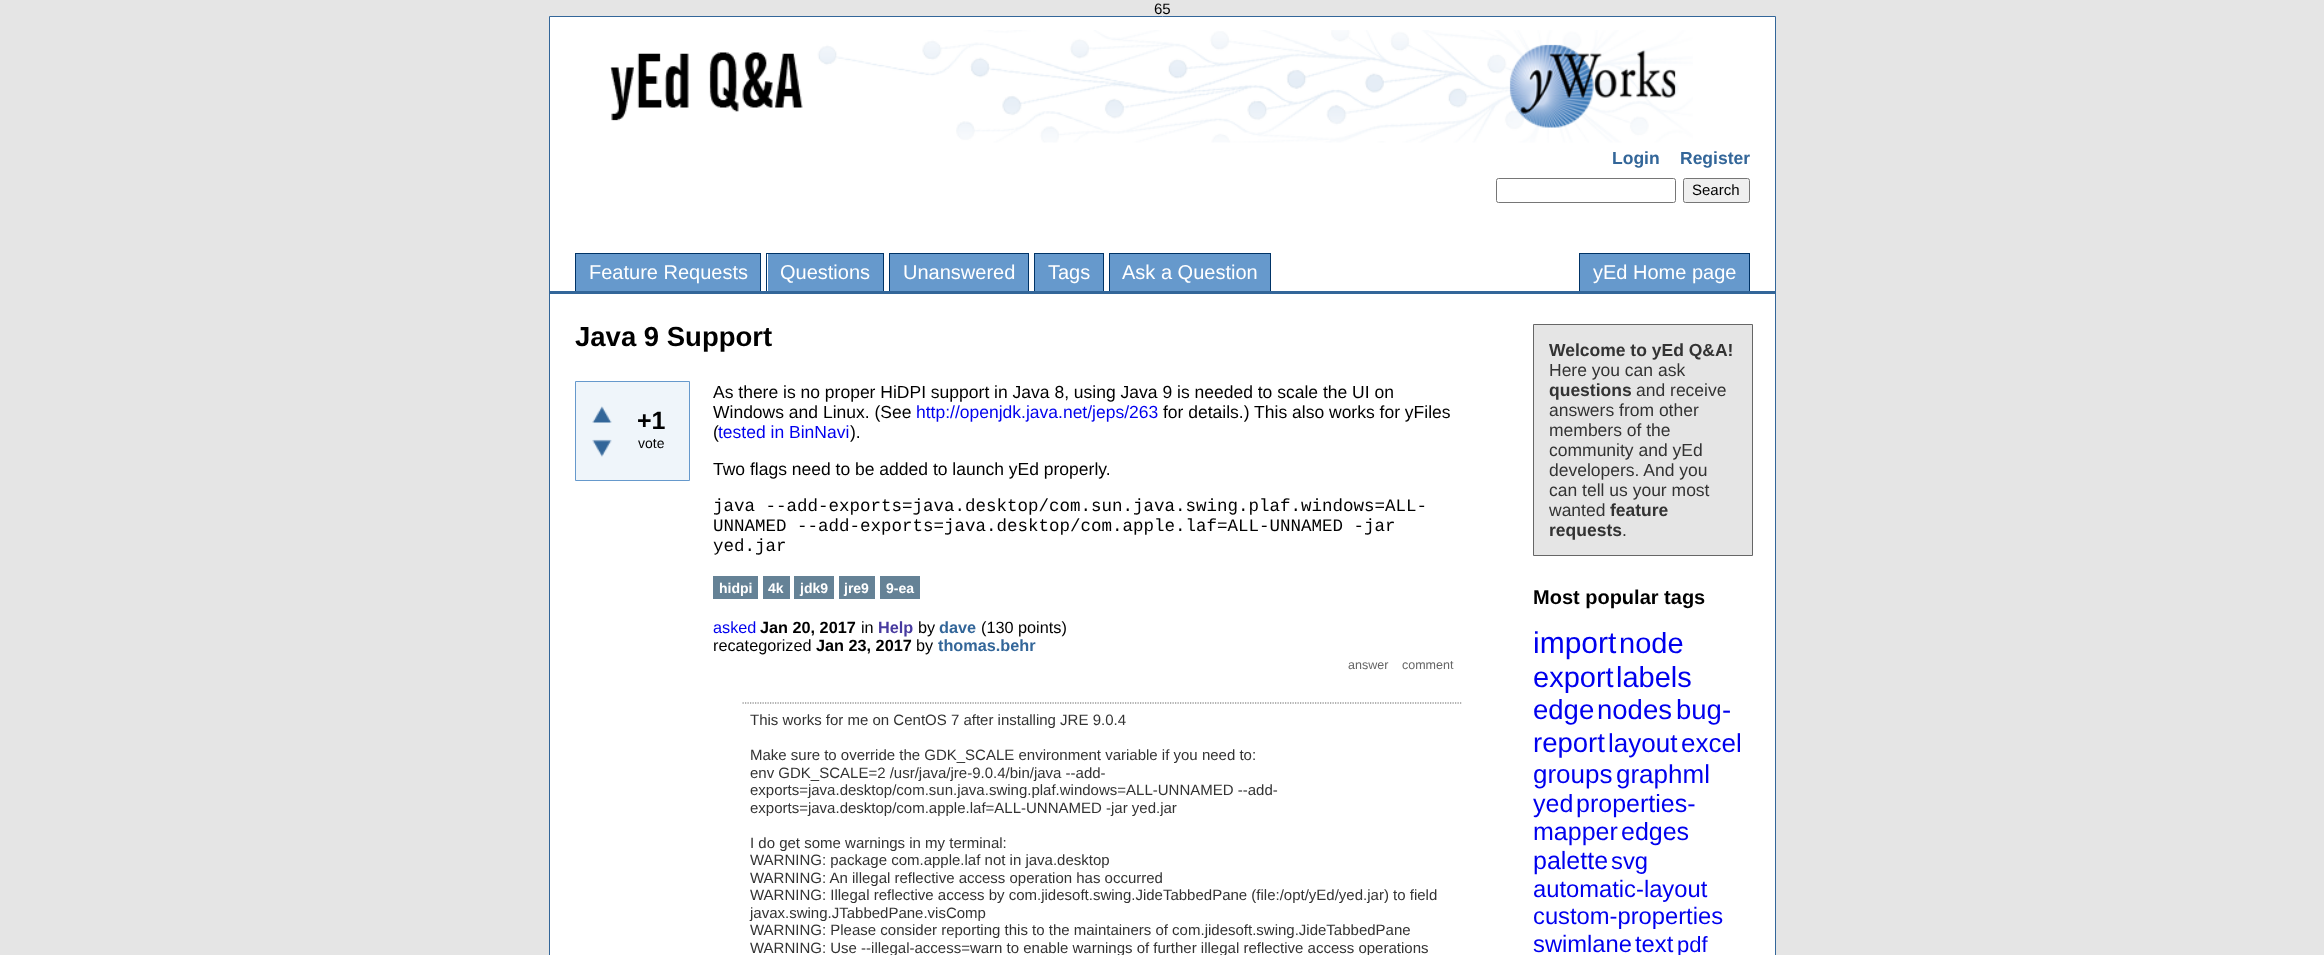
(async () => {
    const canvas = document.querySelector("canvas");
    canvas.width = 2324;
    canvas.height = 955;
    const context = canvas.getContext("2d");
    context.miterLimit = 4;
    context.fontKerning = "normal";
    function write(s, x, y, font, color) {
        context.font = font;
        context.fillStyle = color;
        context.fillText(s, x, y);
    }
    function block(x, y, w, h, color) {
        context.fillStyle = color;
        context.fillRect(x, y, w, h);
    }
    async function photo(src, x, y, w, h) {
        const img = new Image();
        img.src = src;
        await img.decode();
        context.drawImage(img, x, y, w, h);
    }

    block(0, 0, 2324, 955, "rgb(229, 229, 229)");
    write("65", 1154, 14, "15px Liberation Sans", "rgb(0, 0, 0)");
    context.fillStyle = "rgb(255, 255, 255)";
    context.beginPath();
    context.rect(549.5, 16.5, 1226, 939);
    context.fill();
    context.strokeStyle = "rgb(51, 102, 153)";
    context.stroke();
    block(550, 291, 1225, 3, "rgb(51, 102, 153)");
    await photo("media/1.png", 610, 30, 1083, 113);
    write("Login", 1612, 164, "bold 17.5px Liberation Sans", "rgb(51, 102, 153)");
    write("Register", 1680, 164, "bold 17.5px Liberation Sans", "rgb(51, 102, 153)");
    context.beginPath();
    context.roundRect(1496.5, 178.5, 179, 24, 2);
    context.strokeStyle = "rgb(118, 118, 118)";
    context.stroke();
    context.fillStyle = "rgb(239, 239, 239)";
    context.beginPath();
    context.roundRect(1683.5, 178.5, 66, 24, 2);
    context.fill();
    context.stroke();
    write("Search", 1692, 195, "15px Liberation Sans", "rgb(0, 0, 0)");
    block(575, 253, 186, 1, "rgb(0, 51, 102)");
    block(760, 253, 1, 38, "rgb(0, 51, 102)");
    block(575, 253, 1, 38, "rgb(0, 51, 102)");
    block(576, 254, 184, 37, "rgb(102, 153, 204)");
    write("Feature Requests", 589, 279, "20px Liberation Sans", "rgb(255, 255, 255)");
    block(766, 253, 118, 1, "rgb(0, 51, 102)");
    block(883, 253, 1, 38, "rgb(0, 51, 102)");
    block(766, 253, 1, 38, "rgb(0, 51, 102)");
    block(768, 254, 115, 37, "rgb(102, 153, 204)");
    write("Questions", 780, 279, "20px Liberation Sans", "rgb(255, 255, 255)");
    block(889, 253, 140, 1, "rgb(0, 51, 102)");
    block(1028, 253, 1, 38, "rgb(0, 51, 102)");
    block(889, 253, 1, 38, "rgb(0, 51, 102)");
    block(890, 254, 138, 37, "rgb(102, 153, 204)");
    write("Unanswered", 903, 279, "20px Liberation Sans", "rgb(255, 255, 255)");
    block(1034, 253, 70, 1, "rgb(0, 51, 102)");
    block(1103, 253, 1, 38, "rgb(0, 51, 102)");
    block(1034, 253, 1, 38, "rgb(0, 51, 102)");
    block(1035, 254, 68, 37, "rgb(102, 153, 204)");
    write("Tags", 1048, 279, "20px Liberation Sans", "rgb(255, 255, 255)");
    block(1109, 253, 162, 1, "rgb(0, 51, 102)");
    block(1270, 253, 1, 38, "rgb(0, 51, 102)");
    block(1109, 253, 1, 38, "rgb(0, 51, 102)");
    block(1110, 254, 160, 37, "rgb(102, 153, 204)");
    write("Ask a Question", 1122, 279, "20px Liberation Sans", "rgb(255, 255, 255)");
    block(1579, 253, 171, 1, "rgb(0, 51, 102)");
    block(1749, 253, 1, 38, "rgb(0, 51, 102)");
    block(1579, 253, 1, 38, "rgb(0, 51, 102)");
    block(1580, 254, 169, 37, "rgb(102, 153, 204)");
    write("yEd Home page", 1593, 279, "20px Liberation Sans", "rgb(255, 255, 255)");
    write("Java 9 Support", 575, 346, "bold 27.5px Liberation Sans", "rgb(0, 0, 0)");
    context.fillStyle = "rgb(239, 245, 250)";
    context.beginPath();
    context.rect(575.5, 381.5, 114, 99);
    context.fill();
    context.strokeStyle = "rgb(102, 153, 204)";
    context.stroke();
    await photo("media/2.png", 592, 406, 20, 17);
    await photo("media/3.png", 592, 439, 20, 18);
    write("+1", 637, 429, "bold 25px Liberation Sans", "rgb(0, 0, 0)");
    write("vote", 638, 448, "14px Liberation Sans", "rgb(0, 0, 0)");
    write("As there is no proper HiDPI support in Java 8, using Java 9 is needed to scale the UI on", 713, 398, "17.5px Liberation Sans", "rgb(0, 0, 0)");
    write("Windows and Linux. (See", 713, 418, "17.5px Liberation Sans", "rgb(0, 0, 0)");
    write("http://openjdk.java.net/jeps/263", 916, 418, "17.5px Liberation Sans", "rgb(0, 0, 238)");
    write("for details.) This also works for yFiles", 1163, 418, "17.5px Liberation Sans", "rgb(0, 0, 0)");
    write("(", 713, 438, "17.5px Liberation Sans", "rgb(0, 0, 0)");
    write("tested in BinNavi", 718, 438, "17.5px Liberation Sans", "rgb(0, 0, 238)");
    write(").", 850, 438, "17.5px Liberation Sans", "rgb(0, 0, 0)");
    write("Two flags need to be added to launch yEd properly.", 713, 475, "17.5px Liberation Sans", "rgb(0, 0, 0)");
    write("java --add-exports=java.desktop/com.sun.java.swing.plaf.windows=ALL-", 713, 511, "17.5px Liberation Mono", "rgb(0, 0, 0)");
    write("UNNAMED --add-exports=java.desktop/com.apple.laf=ALL-UNNAMED -jar", 713, 531, "17.5px Liberation Mono", "rgb(0, 0, 0)");
    write("yed.jar", 713, 551, "17.5px Liberation Mono", "rgb(0, 0, 0)");
    block(713, 576, 45, 23, "rgb(101, 130, 150)");
    write("hidpi", 719, 593, "bold 14px Liberation Sans", "rgb(255, 255, 255)");
    block(763, 576, 27, 23, "rgb(101, 130, 150)");
    write("4k", 768, 593, "bold 14px Liberation Sans", "rgb(255, 255, 255)");
    block(794, 576, 40, 23, "rgb(101, 130, 150)");
    write("jdk9", 800, 593, "bold 14px Liberation Sans", "rgb(255, 255, 255)");
    block(839, 576, 36, 23, "rgb(101, 130, 150)");
    write("jre9", 844, 593, "bold 14px Liberation Sans", "rgb(255, 255, 255)");
    block(880, 576, 40, 23, "rgb(101, 130, 150)");
    write("9-ea", 886, 593, "bold 14px Liberation Sans", "rgb(255, 255, 255)");
    write("asked", 713, 633, "16.25px Liberation Sans", "rgb(0, 0, 238)");
    write("Jan 20, 2017", 760, 633, "bold 16.25px Liberation Sans", "rgb(0, 0, 0)");
    write("in", 861, 633, "16.25px Liberation Sans", "rgb(0, 0, 0)");
    write("Help", 878, 633, "bold 16.25px Liberation Sans", "rgb(71, 58, 159)");
    write("by", 918, 633, "16.25px Liberation Sans", "rgb(0, 0, 0)");
    write("dave", 939, 633, "bold 16.25px Liberation Sans", "rgb(51, 102, 153)");
    write("(130 points)", 981, 633, "16.25px Liberation Sans", "rgb(0, 0, 0)");
    write("recategorized", 713, 651, "16.25px Liberation Sans", "rgb(0, 0, 0)");
    write("Jan 23, 2017", 816, 651, "bold 16.25px Liberation Sans", "rgb(0, 0, 0)");
    write("by", 916, 651, "16.25px Liberation Sans", "rgb(0, 0, 0)");
    write("thomas.behr", 938, 651, "bold 16.25px Liberation Sans", "rgb(51, 102, 153)");
    write("answer", 1348, 669, "12.5px Liberation Sans", "rgb(102, 102, 102)");
    write("comment", 1402, 669, "12.5px Liberation Sans", "rgb(102, 102, 102)");
    context.beginPath();
    context.moveTo(742.5, 703);
    context.lineTo(1462.5, 703);
    context.strokeStyle = "rgb(102, 102, 102)";
    context.lineWidth = 1.2;
    context.setLineDash([1.25, 1.25]);
    context.stroke();
    write("This works for me on CentOS 7 after installing JRE 9.0.4", 750, 725, "15px Liberation Sans", "rgb(51, 51, 51)");
    write("Make sure to override the GDK_SCALE environment variable if you need to:", 750, 760, "15px Liberation Sans", "rgb(51, 51, 51)");
    write("env GDK_SCALE=2 /usr/java/jre-9.0.4/bin/java --add-", 750, 778, "15px Liberation Sans", "rgb(51, 51, 51)");
    write("exports=java.desktop/com.sun.java.swing.plaf.windows=ALL-UNNAMED --add-", 750, 795, "15px Liberation Sans", "rgb(51, 51, 51)");
    write("exports=java.desktop/com.apple.laf=ALL-UNNAMED -jar yed.jar", 750, 813, "15px Liberation Sans", "rgb(51, 51, 51)");
    write("I do get some warnings in my terminal:", 750, 848, "15px Liberation Sans", "rgb(51, 51, 51)");
    write("WARNING: package com.apple.laf not in java.desktop", 750, 865, "15px Liberation Sans", "rgb(51, 51, 51)");
    write("WARNING: An illegal reflective access operation has occurred", 750, 883, "15px Liberation Sans", "rgb(51, 51, 51)");
    write("WARNING: Illegal reflective access by com.jidesoft.swing.JideTabbedPane (file:/opt/yEd/yed.jar) to field", 750, 900, "15px Liberation Sans", "rgb(51, 51, 51)");
    write("javax.swing.JTabbedPane.visComp", 750, 918, "15px Liberation Sans", "rgb(51, 51, 51)");
    write("WARNING: Please consider reporting this to the maintainers of com.jidesoft.swing.JideTabbedPane", 750, 935, "15px Liberation Sans", "rgb(51, 51, 51)");
    write("WARNING: Use --illegal-access=warn to enable warnings of further illegal reflective access operations", 750, 953, "15px Liberation Sans", "rgb(51, 51, 51)");
    context.fillStyle = "rgb(229, 229, 229)";
    context.beginPath();
    context.rect(1533.5, 324.5, 219, 231);
    context.fill();
    context.lineWidth = 1;
    context.setLineDash([]);
    context.stroke();
    write("Welcome to yEd Q&A!", 1549, 356, "bold 17.5px Liberation Sans", "rgb(51, 51, 51)");
    write("Here you can ask", 1549, 376, "17.5px Liberation Sans", "rgb(51, 51, 51)");
    write("questions", 1549, 396, "bold 17.5px Liberation Sans", "rgb(51, 51, 51)");
    write("and receive", 1636, 396, "17.5px Liberation Sans", "rgb(51, 51, 51)");
    write("answers from other", 1549, 416, "17.5px Liberation Sans", "rgb(51, 51, 51)");
    write("members of the", 1549, 436, "17.5px Liberation Sans", "rgb(51, 51, 51)");
    write("community and yEd", 1549, 456, "17.5px Liberation Sans", "rgb(51, 51, 51)");
    write("developers. And you", 1549, 476, "17.5px Liberation Sans", "rgb(51, 51, 51)");
    write("can tell us your most", 1549, 496, "17.5px Liberation Sans", "rgb(51, 51, 51)");
    write("wanted", 1549, 516, "17.5px Liberation Sans", "rgb(51, 51, 51)");
    write("feature", 1610, 516, "bold 17.5px Liberation Sans", "rgb(51, 51, 51)");
    write("requests", 1549, 536, "bold 17.5px Liberation Sans", "rgb(51, 51, 51)");
    write(".", 1622, 536, "17.5px Liberation Sans", "rgb(51, 51, 51)");
    write("Most popular tags", 1533, 604, "bold 20px Liberation Sans", "rgb(0, 0, 0)");
    write("import", 1533, 653, "30px Liberation Sans", "rgb(0, 0, 238)");
    write("node", 1619, 653, "29px Liberation Sans", "rgb(0, 0, 238)");
    write("export", 1533, 687, "29px Liberation Sans", "rgb(0, 0, 238)");
    write("labels", 1616, 687, "29px Liberation Sans", "rgb(0, 0, 238)");
    write("edge", 1533, 719, "27.5px Liberation Sans", "rgb(0, 0, 238)");
    write("nodes", 1597, 719, "27.5px Liberation Sans", "rgb(0, 0, 238)");
    write("bug-", 1676, 719, "27.5px Liberation Sans", "rgb(0, 0, 238)");
    write("report", 1533, 752, "27.5px Liberation Sans", "rgb(0, 0, 238)");
    write("layout", 1608, 752, "26px Liberation Sans", "rgb(0, 0, 238)");
    write("excel", 1681, 752, "26px Liberation Sans", "rgb(0, 0, 238)");
    write("groups", 1533, 783, "26px Liberation Sans", "rgb(0, 0, 238)");
    write("graphml", 1616, 783, "26px Liberation Sans", "rgb(0, 0, 238)");
    write("yed", 1533, 812, "25px Liberation Sans", "rgb(0, 0, 238)");
    write("properties-", 1576, 812, "25px Liberation Sans", "rgb(0, 0, 238)");
    write("mapper", 1533, 840, "25px Liberation Sans", "rgb(0, 0, 238)");
    write("edges", 1621, 840, "25px Liberation Sans", "rgb(0, 0, 238)");
    write("palette", 1533, 869, "25px Liberation Sans", "rgb(0, 0, 238)");
    write("svg", 1611, 869, "23.75px Liberation Sans", "rgb(0, 0, 238)");
    write("automatic-layout", 1533, 897, "23.75px Liberation Sans", "rgb(0, 0, 238)");
    write("custom-properties", 1533, 924, "23.75px Liberation Sans", "rgb(0, 0, 238)");
    write("swimlane", 1533, 952, "23.75px Liberation Sans", "rgb(0, 0, 238)");
    write("text", 1635, 952, "23.75px Liberation Sans", "rgb(0, 0, 238)");
    write("pdf", 1677, 952, "22px Liberation Sans", "rgb(0, 0, 238)");
})();
